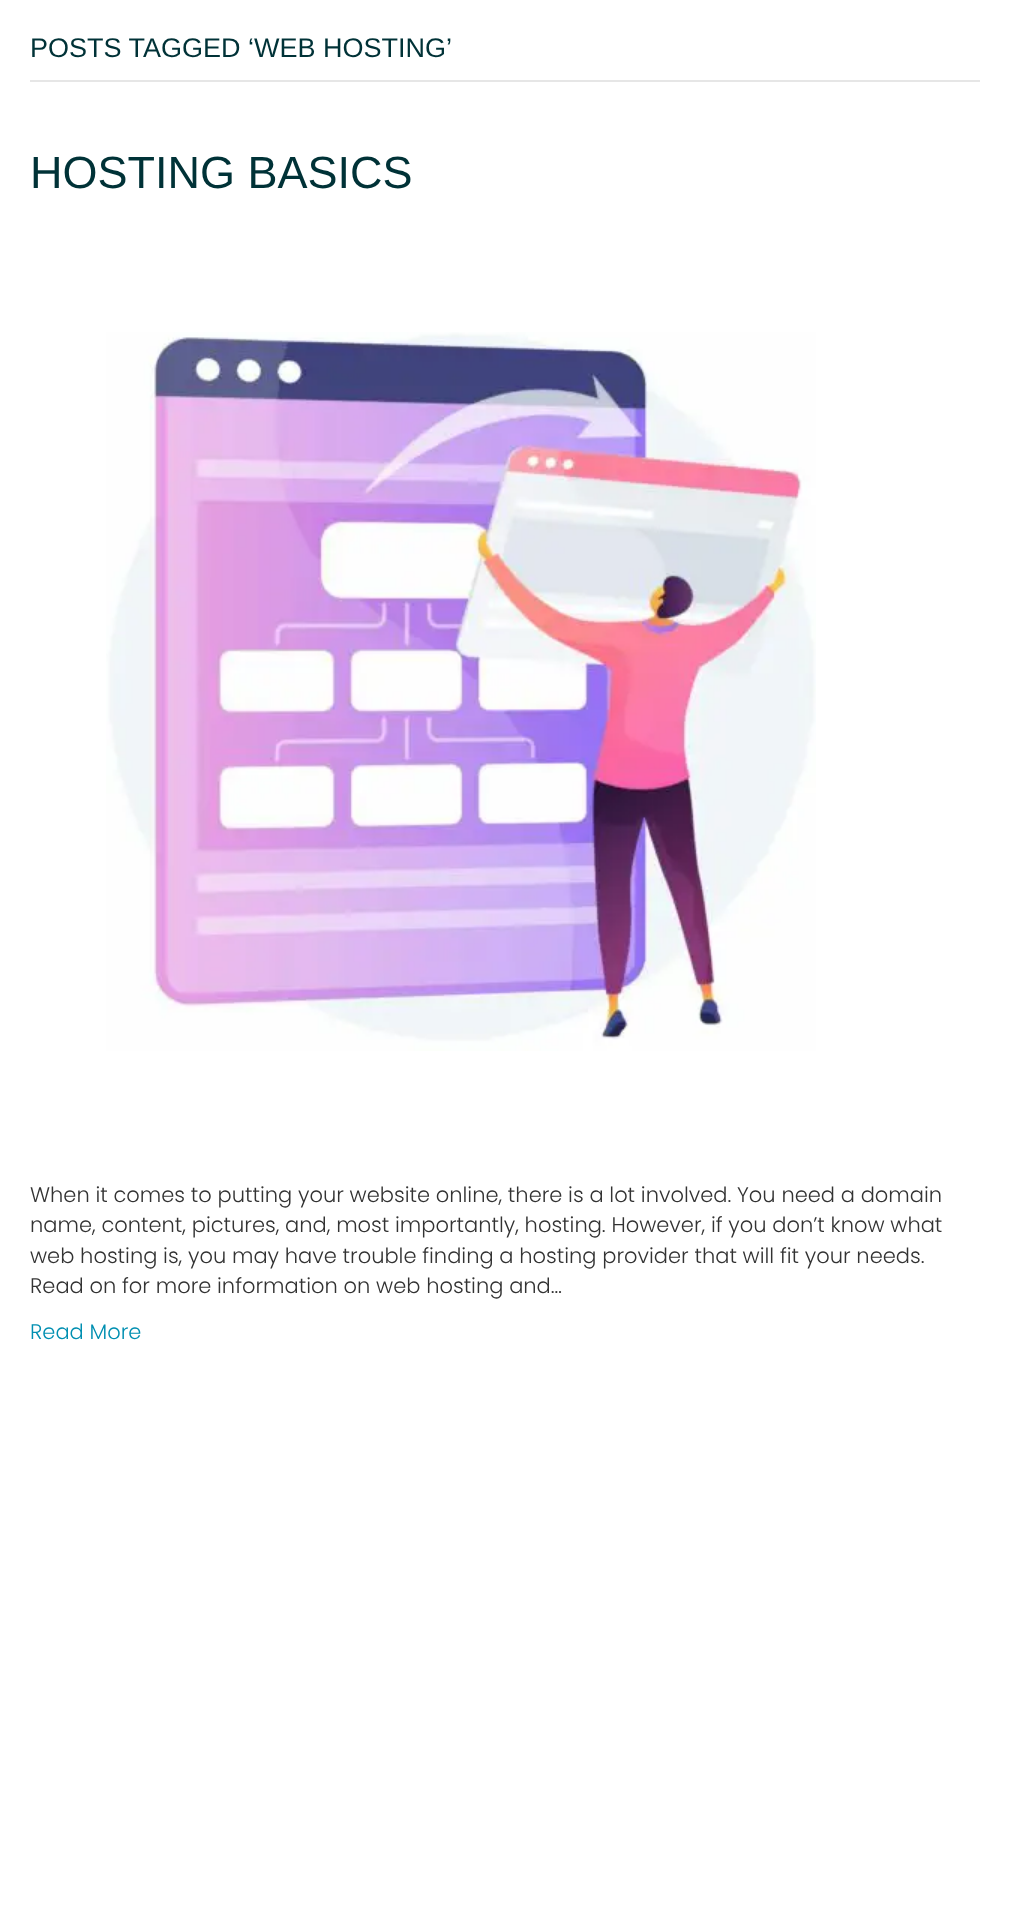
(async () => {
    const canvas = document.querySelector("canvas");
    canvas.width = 1009;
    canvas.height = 1916;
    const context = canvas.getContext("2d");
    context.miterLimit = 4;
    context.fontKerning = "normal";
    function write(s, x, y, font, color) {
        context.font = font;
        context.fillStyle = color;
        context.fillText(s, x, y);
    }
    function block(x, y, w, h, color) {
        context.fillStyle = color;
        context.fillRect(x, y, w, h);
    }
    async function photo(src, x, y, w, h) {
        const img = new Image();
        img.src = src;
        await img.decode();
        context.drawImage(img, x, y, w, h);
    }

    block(0, 0, 1009, 1916, "rgb(255, 255, 255)");
    block(30, 80, 950, 2, "rgb(230, 230, 230)");
    write("POSTS TAGGED ‘WEB HOSTING’", 30, 57, "27px Liberation Sans", "rgb(0, 50, 55)");
    write("HOSTING BASICS", 30, 188, "45px Liberation Sans", "rgb(0, 50, 55)");
    await photo("media/1.png", 106, 332, 710, 719);
    write("When it comes to putting your website online, there is a lot involved. You need a domain", 30, 1202, "300 21px Poppins", "rgb(51, 51, 51)");
    write("name, content, pictures, and, most importantly, hosting. However, if you don’t know what", 30, 1232, "300 21px Poppins", "rgb(51, 51, 51)");
    write("web hosting is, you may have trouble finding a hosting provider that will fit your needs.", 30, 1263, "300 21px Poppins", "rgb(51, 51, 51)");
    write("Read on for more information on web hosting and…", 30, 1293, "300 21px Poppins", "rgb(51, 51, 51)");
    write("Read More", 30, 1339, "300 21px Poppins", "rgb(0, 143, 177)");
})();
